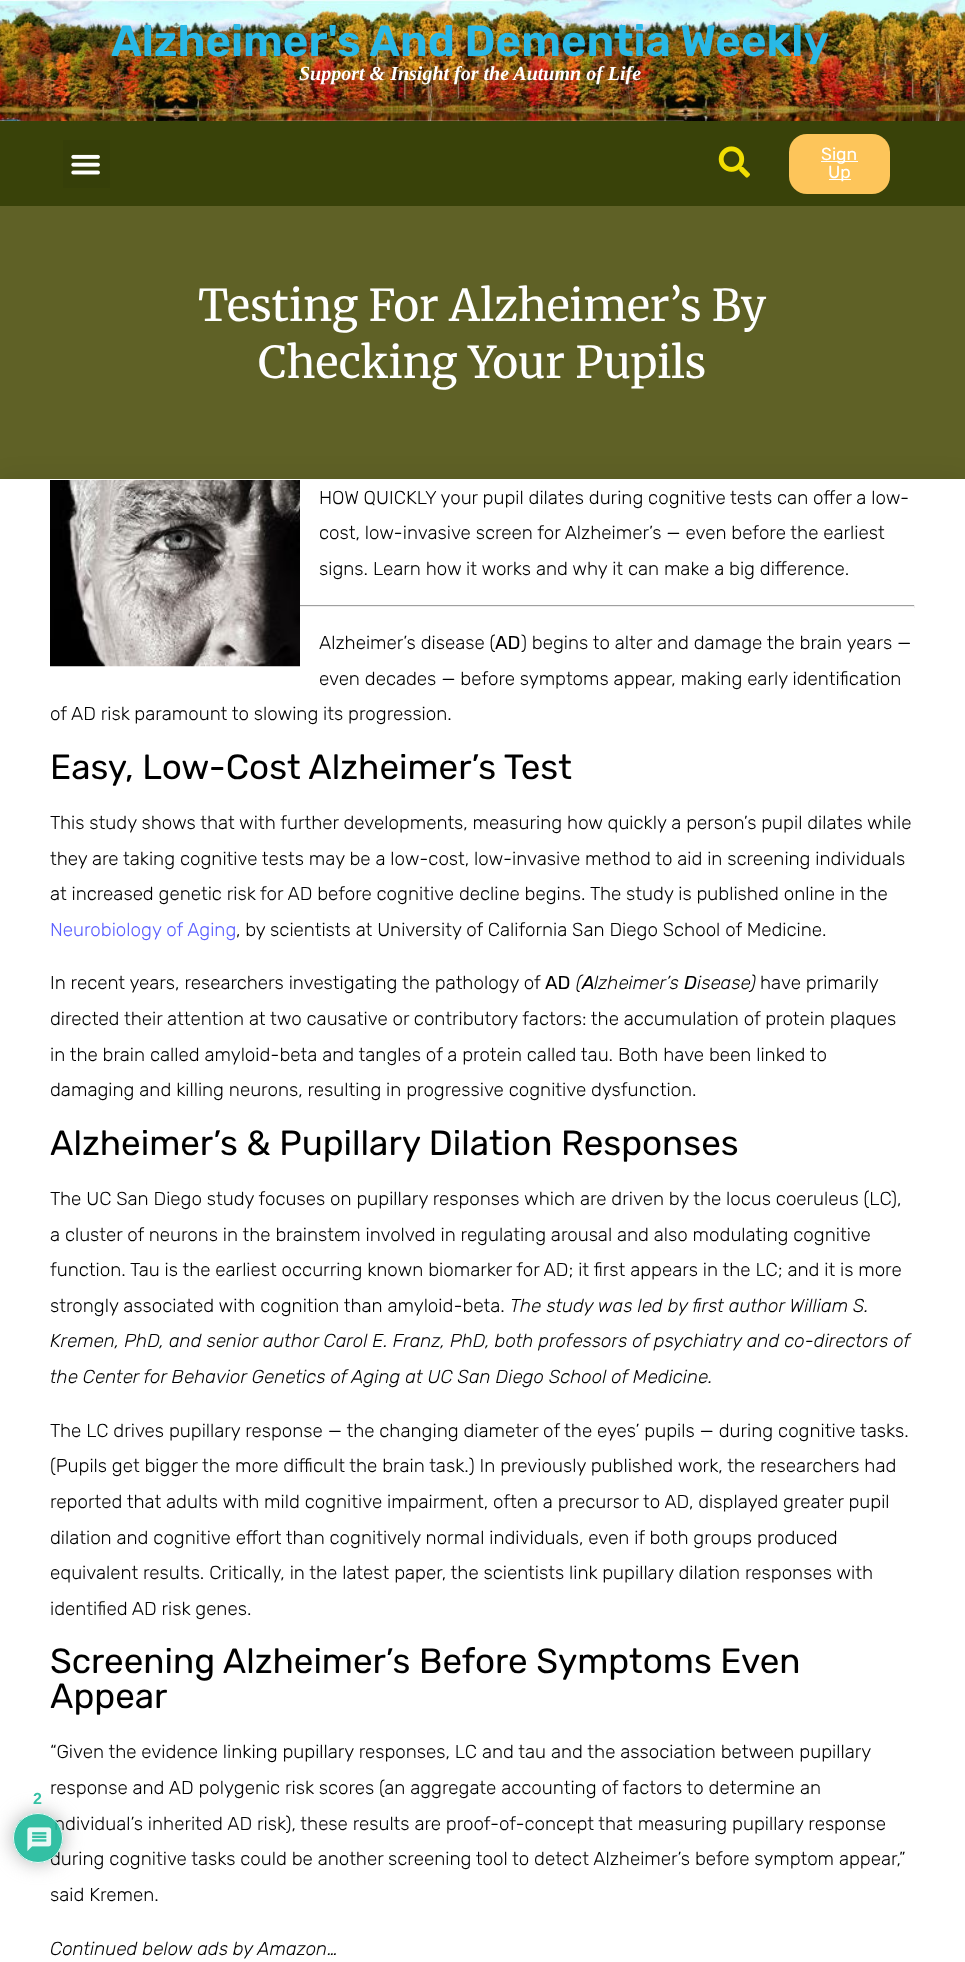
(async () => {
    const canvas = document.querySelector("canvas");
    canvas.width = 965;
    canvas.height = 1962;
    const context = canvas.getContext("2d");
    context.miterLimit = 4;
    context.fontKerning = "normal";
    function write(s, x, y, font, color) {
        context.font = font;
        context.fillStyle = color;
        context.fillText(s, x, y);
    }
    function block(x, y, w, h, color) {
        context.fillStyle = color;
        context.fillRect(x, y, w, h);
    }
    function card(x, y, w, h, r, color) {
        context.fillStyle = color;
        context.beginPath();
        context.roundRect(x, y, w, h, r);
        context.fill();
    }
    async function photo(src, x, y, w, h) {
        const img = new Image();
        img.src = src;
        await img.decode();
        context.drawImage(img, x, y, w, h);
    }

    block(0, 0, 965, 1962, "rgb(255, 255, 255)");
    await photo("media/1.png", 0, 0, 965, 121);
    write("Alzheimer's And Dementia Weekly", 111, 56, "600 43.75px Rubik", "rgb(41, 185, 230)");
    write("Support & Insight for the Autumn of Life", 299, 80, "italic bold 20px Liberation Serif", "rgb(255, 255, 255)");
    block(0, 121, 965, 85, "rgb(57, 66, 9)");
    block(63, 140, 47, 48, "rgb(54, 63, 9)");
    await photo("media/2.png", 71, 154, 29, 21);
    await photo("media/3.png", 718, 146, 32, 32);
    card(789, 134, 101, 60, 18, "rgb(253, 197, 90)");
    block(821, 161, 37, 1, "rgb(255, 255, 255)");
    write("Sign", 821, 160, "17.5px Rubik", "rgb(255, 255, 255)");
    block(829, 179, 22, 1, "rgb(255, 255, 255)");
    write("Up", 828, 178, "17.5px Rubik", "rgb(255, 255, 255)");
    block(0, 206, 965, 273, "rgb(95, 97, 38)");
    context.fillStyle = "rgba(0, 0, 0, 0.09)";
    context.filter = "blur(12.5px)";
    context.beginPath();
    context.rect(0, 479, 965, 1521);
    context.fill();
    context.filter = "none";
    block(0, 479, 965, 1483, "rgb(255, 255, 255)");
    context.save();
    context.beginPath();
    context.moveTo(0, 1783);
    context.lineTo(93, 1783);
    context.lineTo(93, 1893);
    context.lineTo(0, 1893);
    context.closePath();
    context.moveTo(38, 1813);
    context.bezierCurveTo(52, 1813, 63, 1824, 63, 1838);
    context.bezierCurveTo(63, 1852, 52, 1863, 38, 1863);
    context.bezierCurveTo(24, 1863, 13, 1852, 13, 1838);
    context.bezierCurveTo(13, 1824, 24, 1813, 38, 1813);
    context.closePath();
    context.clip("evenodd");
    context.fillStyle = "rgba(170, 170, 170, 0.9)";
    context.filter = "blur(9.5px)";
    context.beginPath();
    context.roundRect(13, 1813, 50, 50, 25);
    context.fill();
    context.filter = "none";
    context.restore();
    write("ndividual’s inherited AD risk), these results are proof-of-concept that measuring pupillary response", 54, 1830, "300 18.75px Rubik", "rgb(0, 0, 0)");
    write("during cognitive tasks could be another screening tool to detect Alzheimer’s before symptom appear,”", 50, 1865, "300 18.75px Rubik", "rgb(0, 0, 0)");
    context.fillStyle = "rgba(29, 185, 154, 0.9)";
    context.beginPath();
    context.arc(38, 1838, 25, 0, Math.PI * 2);
    context.fill();
    context.beginPath();
    context.arc(38, 1838, 24.5, 0, Math.PI * 2);
    context.strokeStyle = "rgba(255, 255, 255, 0.9)";
    context.stroke();
    await photo("media/4.png", 27, 1827, 25, 24);
    write("2", 33, 1804, "bold 16px Liberation Sans", "rgb(52, 192, 164)");
    write("Testing For Alzheimer’s By", 198, 321, "43.75px Merriweather", "rgb(255, 255, 255)");
    write("Checking Your Pupils", 258, 378, "43.75px Merriweather", "rgb(255, 255, 255)");
    await photo("media/5.png", 50, 480, 250, 187);
    write("HOW QUICKLY your pupil dilates during cognitive tests can offer a low-", 319, 504, "300 18.75px Rubik", "rgb(0, 0, 0)");
    write("cost, low-invasive screen for Alzheimer’s — even before the earliest", 319, 539, "300 18.75px Rubik", "rgb(0, 0, 0)");
    write("signs. Learn how it works and why it can make a big difference.", 319, 575, "300 18.75px Rubik", "rgb(0, 0, 0)");
    block(300, 605, 615, 1, "rgb(159, 159, 159)");
    block(914, 605, 1, 3, "rgb(238, 238, 238)");
    block(300, 606, 615, 1, "rgb(238, 238, 238)");
    write("Alzheimer’s disease (", 319, 649, "300 18.75px Rubik", "rgb(0, 0, 0)");
    write("AD", 495, 649, "18.75px Rubik", "rgb(0, 0, 0)");
    write(") begins to alter and damage the brain years —", 521, 649, "300 18.75px Rubik", "rgb(0, 0, 0)");
    write("even decades — before symptoms appear, making early identification", 319, 685, "300 18.75px Rubik", "rgb(0, 0, 0)");
    write("of AD risk paramount to slowing its progression.", 50, 720, "300 18.75px Rubik", "rgb(0, 0, 0)");
    write("Easy, Low-Cost Alzheimer’s Test", 50, 779, "35px Rubik", "rgb(0, 0, 0)");
    write("This study shows that with further developments, measuring how quickly a person’s pupil dilates while", 50, 829, "300 18.75px Rubik", "rgb(0, 0, 0)");
    write("they are taking cognitive tests may be a low-cost, low-invasive method to aid in screening individuals", 50, 865, "300 18.75px Rubik", "rgb(0, 0, 0)");
    write("at increased genetic risk for AD before cognitive decline begins. The study is published online in the", 50, 900, "300 18.75px Rubik", "rgb(0, 0, 0)");
    write("Neurobiology of Aging", 50, 936, "300 18.75px Rubik", "rgb(90, 95, 255)");
    write(", by scientists at University of California San Diego School of Medicine.", 236, 936, "300 18.75px Rubik", "rgb(0, 0, 0)");
    write("In recent years, researchers investigating the pathology of", 50, 989, "300 18.75px Rubik", "rgb(0, 0, 0)");
    write("AD", 545, 989, "18.75px Rubik", "rgb(0, 0, 0)");
    write("(", 576, 989, "italic 300 18.75px Rubik", "rgb(0, 0, 0)");
    write("A", 582, 989, "italic 18.75px Rubik", "rgb(0, 0, 0)");
    write("lzheimer’s", 594, 989, "italic 300 18.75px Rubik", "rgb(0, 0, 0)");
    write("D", 684, 989, "italic 18.75px Rubik", "rgb(0, 0, 0)");
    write("isease)", 697, 989, "italic 300 18.75px Rubik", "rgb(0, 0, 0)");
    write("have primarily", 760, 989, "300 18.75px Rubik", "rgb(0, 0, 0)");
    write("directed their attention at two causative or contributory factors: the accumulation of protein plaques", 50, 1025, "300 18.75px Rubik", "rgb(0, 0, 0)");
    write("in the brain called amyloid-beta and tangles of a protein called tau. Both have been linked to", 50, 1061, "300 18.75px Rubik", "rgb(0, 0, 0)");
    write("damaging and killing neurons, resulting in progressive cognitive dysfunction.", 50, 1096, "300 18.75px Rubik", "rgb(0, 0, 0)");
    write("Alzheimer’s & Pupillary Dilation Responses", 50, 1155, "35px Rubik", "rgb(0, 0, 0)");
    write("The UC San Diego study focuses on pupillary responses which are driven by the locus coeruleus (LC),", 50, 1205, "300 18.75px Rubik", "rgb(0, 0, 0)");
    write("a cluster of neurons in the brainstem involved in regulating arousal and also modulating cognitive", 50, 1241, "300 18.75px Rubik", "rgb(0, 0, 0)");
    write("function. Tau is the earliest occurring known biomarker for AD; it first appears in the LC; and it is more", 50, 1276, "300 18.75px Rubik", "rgb(0, 0, 0)");
    write("strongly associated with cognition than amyloid-beta.", 50, 1312, "300 18.75px Rubik", "rgb(0, 0, 0)");
    write("The study was led by first author William S.", 510, 1312, "italic 300 18.75px Rubik", "rgb(0, 0, 0)");
    write("Kremen, PhD, and senior author Carol E. Franz, PhD, both professors of psychiatry and co-directors of", 50, 1347, "italic 300 18.75px Rubik", "rgb(0, 0, 0)");
    write("the Center for Behavior Genetics of Aging at UC San Diego School of Medicine.", 50, 1383, "italic 300 18.75px Rubik", "rgb(0, 0, 0)");
    write("The LC drives pupillary response — the changing diameter of the eyes’ pupils — during cognitive tasks.", 50, 1437, "300 18.75px Rubik", "rgb(0, 0, 0)");
    write("(Pupils get bigger the more difficult the brain task.) In previously published work, the researchers had", 50, 1472, "300 18.75px Rubik", "rgb(0, 0, 0)");
    write("reported that adults with mild cognitive impairment, often a precursor to AD, displayed greater pupil", 50, 1508, "300 18.75px Rubik", "rgb(0, 0, 0)");
    write("dilation and cognitive effort than cognitively normal individuals, even if both groups produced", 50, 1544, "300 18.75px Rubik", "rgb(0, 0, 0)");
    write("equivalent results. Critically, in the latest paper, the scientists link pupillary dilation responses with", 50, 1579, "300 18.75px Rubik", "rgb(0, 0, 0)");
    write("identified AD risk genes.", 50, 1615, "300 18.75px Rubik", "rgb(0, 0, 0)");
    write("Screening Alzheimer’s Before Symptoms Even", 50, 1673, "35px Rubik", "rgb(0, 0, 0)");
    write("Appear", 50, 1708, "35px Rubik", "rgb(0, 0, 0)");
    write("“Given the evidence linking pupillary responses, LC and tau and the association between pupillary", 50, 1758, "300 18.75px Rubik", "rgb(0, 0, 0)");
    write("response and AD polygenic risk scores (an aggregate accounting of factors to determine an", 50, 1794, "300 18.75px Rubik", "rgb(0, 0, 0)");
    write("said Kremen.", 50, 1901, "300 18.75px Rubik", "rgb(0, 0, 0)");
    write("Continued below ads by Amazon…", 50, 1955, "italic 300 18.75px Rubik", "rgb(0, 0, 0)");
})();
